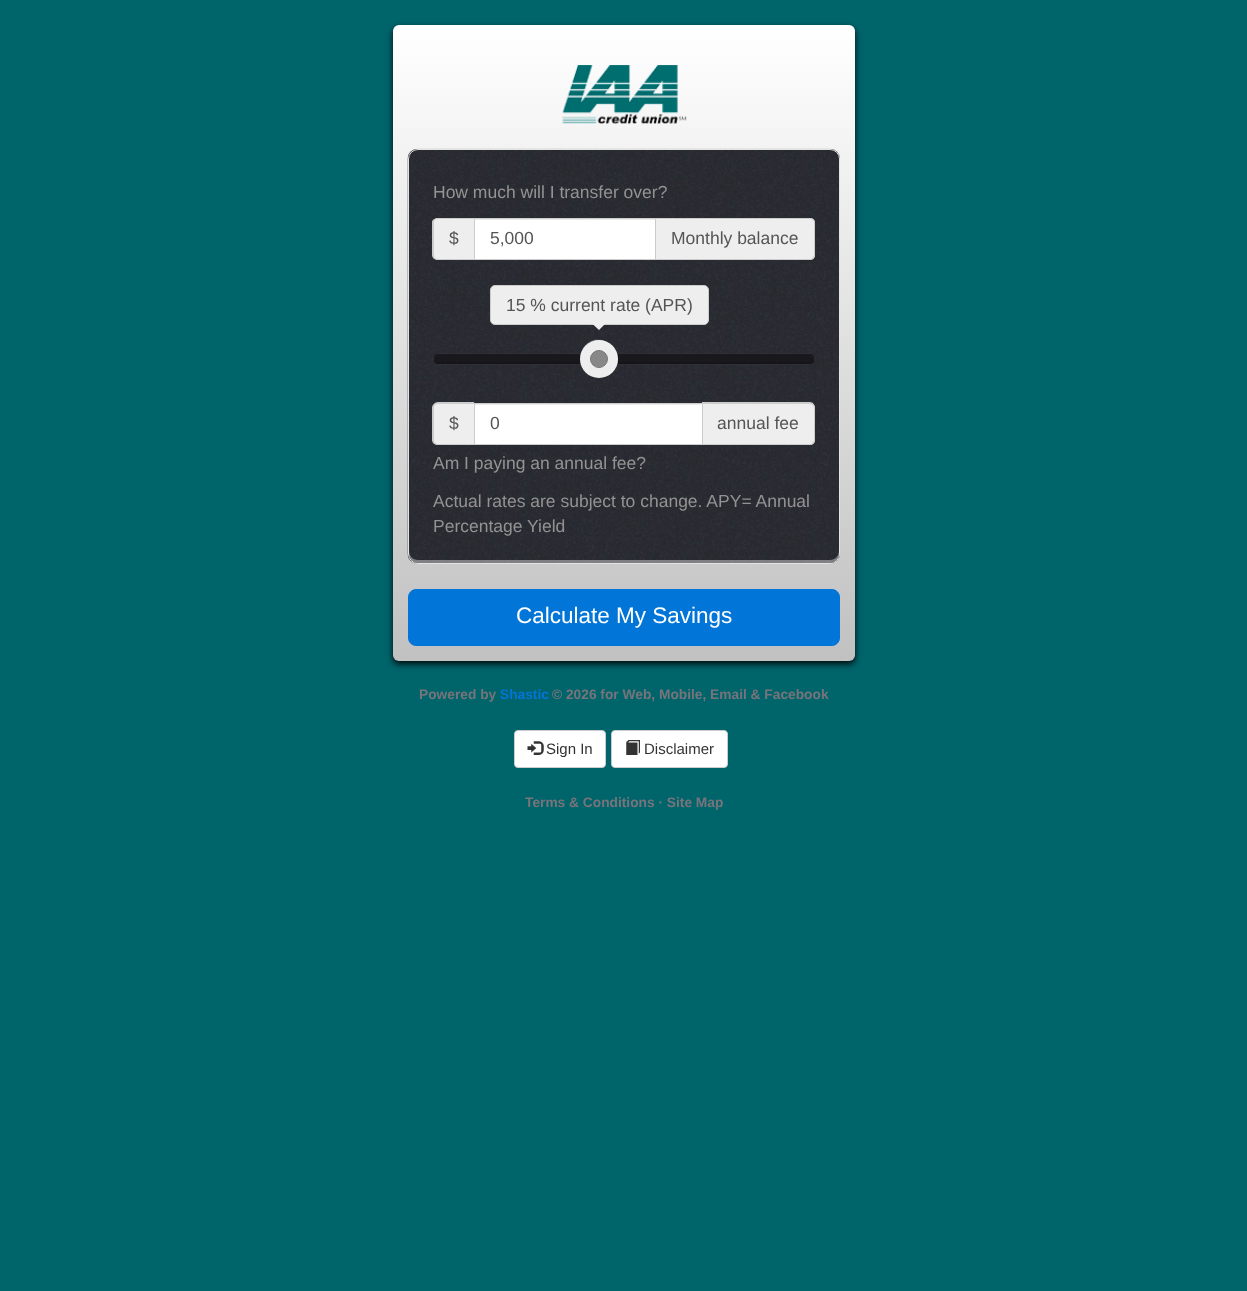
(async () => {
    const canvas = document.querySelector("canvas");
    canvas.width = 1247;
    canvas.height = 1291;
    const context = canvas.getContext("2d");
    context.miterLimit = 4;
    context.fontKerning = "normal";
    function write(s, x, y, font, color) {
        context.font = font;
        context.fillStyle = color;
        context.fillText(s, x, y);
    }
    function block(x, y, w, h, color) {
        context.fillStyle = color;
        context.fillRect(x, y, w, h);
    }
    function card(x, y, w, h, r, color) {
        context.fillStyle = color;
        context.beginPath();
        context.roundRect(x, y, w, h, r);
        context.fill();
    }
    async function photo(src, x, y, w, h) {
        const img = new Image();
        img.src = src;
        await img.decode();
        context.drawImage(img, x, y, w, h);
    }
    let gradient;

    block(0, 0, 1247, 1291, "rgb(0, 100, 107)");
    context.fillStyle = "rgba(0, 0, 0, 0.92)";
    context.filter = "blur(3px)";
    context.beginPath();
    context.roundRect(393, 28, 462, 636, 6);
    context.fill();
    context.filter = "none";
    gradient = context.createLinearGradient(624, 25, 624, 661);
    gradient.addColorStop(0, "rgb(255, 255, 255)");
    gradient.addColorStop(1, "rgb(193, 193, 193)");
    context.fillStyle = gradient;
    context.beginPath();
    context.roundRect(393, 25, 462, 636, 6);
    context.fill();
    await photo("media/1.png", 562, 65, 125, 59);
    await photo("media/2.png", 407, 148, 433, 416);
    context.fillStyle = "rgba(255, 255, 255, 0.4)";
    context.beginPath();
    context.moveTo(409, 551);
    context.lineTo(409, 554);
    context.bezierCurveTo(409, 559, 413, 563, 418, 563);
    context.lineTo(830, 563);
    context.bezierCurveTo(835, 563, 839, 559, 839, 554);
    context.lineTo(839, 551);
    context.bezierCurveTo(839, 556, 835, 560, 830, 560);
    context.lineTo(418, 560);
    context.bezierCurveTo(413, 560, 409, 556, 409, 551);
    context.closePath();
    context.fill();
    context.beginPath();
    context.roundRect(408.5, 149.5, 431, 414, 9.5);
    context.strokeStyle = "rgb(227, 227, 227)";
    context.stroke();
    write("How much will I transfer over?", 433, 198, "17.5px Liberation Sans", "rgb(147, 147, 147)");
    context.fillStyle = "rgb(238, 238, 238)";
    context.beginPath();
    context.roundRect(433, 218, 41, 42, [5, 0, 0, 5]);
    context.fill();
    context.fillStyle = "rgb(204, 204, 204)";
    context.beginPath();
    context.moveTo(438, 218);
    context.lineTo(474, 218);
    context.lineTo(474, 260);
    context.lineTo(438, 260);
    context.bezierCurveTo(435, 260, 432, 258, 432, 255);
    context.lineTo(432, 222);
    context.bezierCurveTo(432, 220, 435, 218, 438, 218);
    context.closePath();
    context.moveTo(438, 219);
    context.lineTo(474, 219);
    context.lineTo(474, 259);
    context.lineTo(438, 259);
    context.bezierCurveTo(435, 259, 434, 257, 434, 255);
    context.lineTo(434, 222);
    context.bezierCurveTo(434, 220, 435, 219, 438, 219);
    context.closePath();
    context.fill("evenodd");
    write("$", 449, 244, "17.5px Liberation Sans", "rgb(85, 85, 85)");
    block(475, 220, 180, 39, "rgb(255, 255, 255)");
    block(475, 219, 180, 1, "rgb(236, 236, 236)");
    context.strokeStyle = "rgb(204, 204, 204)";
    context.strokeRect(474.5, 218.5, 181, 41);
    write("5,000", 490, 244, "17.5px Liberation Sans", "rgb(85, 85, 85)");
    context.fillStyle = "rgb(238, 238, 238)";
    context.beginPath();
    context.roundRect(656, 218, 159, 42, [0, 5, 5, 0]);
    context.fill();
    context.fillStyle = "rgb(204, 204, 204)";
    context.beginPath();
    context.moveTo(656, 218);
    context.lineTo(810, 218);
    context.bezierCurveTo(813, 218, 815, 220, 815, 222);
    context.lineTo(815, 255);
    context.bezierCurveTo(815, 258, 813, 260, 810, 260);
    context.lineTo(656, 260);
    context.closePath();
    context.moveTo(656, 219);
    context.lineTo(810, 219);
    context.bezierCurveTo(812, 219, 814, 220, 814, 222);
    context.lineTo(814, 255);
    context.bezierCurveTo(814, 257, 812, 259, 810, 259);
    context.lineTo(656, 259);
    context.closePath();
    context.fill("evenodd");
    write("Monthly balance", 671, 244, "17.5px Liberation Sans", "rgb(85, 85, 85)");
    context.fillStyle = "rgb(238, 238, 238)";
    context.beginPath();
    context.roundRect(490.5, 285.5, 218, 39, 4.5);
    context.fill();
    context.stroke();
    write("15 % current rate (APR)", 506, 311, "17.5px Liberation Sans", "rgb(85, 85, 85)");
    context.fillStyle = "rgb(238, 238, 238)";
    context.beginPath();
    context.moveTo(592.5, 324);
    context.lineTo(605, 324);
    context.lineTo(599, 330);
    context.closePath();
    context.fill();
    card(433, 353, 382, 12, 5, "rgb(25, 24, 29)");
    context.fillStyle = "rgb(21, 20, 25)";
    context.beginPath();
    context.moveTo(434, 359);
    context.bezierCurveTo(434, 362, 435, 364, 438, 364);
    context.lineTo(811, 364);
    context.bezierCurveTo(814, 363, 815, 360, 814, 357);
    context.bezierCurveTo(814, 359, 813, 362, 810, 362);
    context.lineTo(438, 362);
    context.bezierCurveTo(436, 362, 435, 361, 434, 359);
    context.closePath();
    context.fill();
    context.beginPath();
    context.roundRect(433.5, 353.5, 381, 11, 4.5);
    context.strokeStyle = "rgb(49, 46, 56)";
    context.stroke();
    context.fillStyle = "rgb(238, 238, 238)";
    context.beginPath();
    context.arc(599, 359, 19, 0, Math.PI * 2);
    context.fill();
    context.fillStyle = "rgba(255, 255, 255, 0.2)";
    context.beginPath();
    context.moveTo(599, 341);
    context.bezierCurveTo(615, 341, 620, 358, 615, 370);
    context.bezierCurveTo(628, 349, 597, 327, 583, 348);
    context.bezierCurveTo(580, 353, 579, 358, 581, 363);
    context.bezierCurveTo(579, 353, 585, 341, 599, 341);
    context.closePath();
    context.fill();
    context.fillStyle = "rgb(136, 136, 136)";
    context.beginPath();
    context.arc(599, 359, 8.5, 0, Math.PI * 2);
    context.fill();
    context.strokeStyle = "rgb(119, 119, 119)";
    context.stroke();
    context.fillStyle = "rgb(238, 238, 238)";
    context.beginPath();
    context.roundRect(433, 403, 41, 42, [5, 0, 0, 5]);
    context.fill();
    context.fillStyle = "rgb(204, 204, 204)";
    context.beginPath();
    context.moveTo(438, 402);
    context.lineTo(474, 402);
    context.lineTo(474, 445);
    context.lineTo(438, 445);
    context.bezierCurveTo(435, 445, 432, 443, 432, 440);
    context.lineTo(432, 408);
    context.bezierCurveTo(432, 405, 435, 402, 438, 402);
    context.closePath();
    context.moveTo(438, 404);
    context.lineTo(474, 404);
    context.lineTo(474, 444);
    context.lineTo(438, 444);
    context.bezierCurveTo(435, 444, 434, 442, 434, 440);
    context.lineTo(434, 408);
    context.bezierCurveTo(434, 405, 435, 404, 438, 404);
    context.closePath();
    context.fill("evenodd");
    write("$", 449, 429, "17.5px Liberation Sans", "rgb(85, 85, 85)");
    block(475, 404, 227, 40, "rgb(255, 255, 255)");
    block(475, 404, 226, 1, "rgb(236, 236, 236)");
    context.fillStyle = "rgb(238, 238, 238)";
    context.beginPath();
    context.roundRect(703, 403, 112, 42, [0, 5, 5, 0]);
    context.fill();
    context.fillStyle = "rgb(204, 204, 204)";
    context.beginPath();
    context.moveTo(702, 402);
    context.lineTo(810, 402);
    context.bezierCurveTo(813, 402, 815, 405, 815, 408);
    context.lineTo(815, 440);
    context.bezierCurveTo(815, 443, 813, 445, 810, 445);
    context.lineTo(702, 445);
    context.closePath();
    context.moveTo(702, 404);
    context.lineTo(810, 404);
    context.bezierCurveTo(812, 404, 814, 405, 814, 408);
    context.lineTo(814, 440);
    context.bezierCurveTo(814, 442, 812, 444, 810, 444);
    context.lineTo(702, 444);
    context.closePath();
    context.fill("evenodd");
    context.strokeStyle = "rgb(204, 204, 204)";
    context.strokeRect(474.5, 403.5, 228, 41);
    write("0", 490, 429, "17.5px Liberation Sans", "rgb(85, 85, 85)");
    write("annual fee", 717, 429, "17.5px Liberation Sans", "rgb(85, 85, 85)");
    write("Am I paying an annual fee?", 433, 469, "17.5px Liberation Sans", "rgb(147, 147, 147)");
    write("Actual rates are subject to change. APY= Annual", 433, 507, "17.5px Liberation Sans", "rgb(147, 147, 147)");
    write("Percentage Yield", 433, 532, "17.5px Liberation Sans", "rgb(147, 147, 147)");
    context.fillStyle = "rgb(2, 117, 216)";
    context.beginPath();
    context.roundRect(408.5, 589.5, 431, 56, 7.5);
    context.fill();
    context.strokeStyle = "rgb(2, 117, 216)";
    context.stroke();
    write("Calculate My Savings", 516, 623, "22.5px Liberation Sans", "rgb(255, 255, 255)");
    write("Powered by", 419, 699, "bold 13.75px Liberation Sans", "rgb(119, 116, 123)");
    write("Shastic", 500, 699, "bold 13.75px Liberation Sans", "rgb(2, 117, 216)");
    write("© 2026 for Web, Mobile, Email & Facebook", 552, 699, "bold 13.75px Liberation Sans", "rgb(119, 116, 123)");
    context.fillStyle = "rgb(255, 255, 255)";
    context.beginPath();
    context.roundRect(514.5, 730.5, 91, 37, 3.5);
    context.fill();
    context.strokeStyle = "rgb(204, 204, 204)";
    context.stroke();
    await photo("media/3.png", 527, 741, 17, 14);
    write("Sign In", 546, 754, "15px Liberation Sans", "rgb(51, 51, 51)");
    context.fillStyle = "rgb(255, 255, 255)";
    context.beginPath();
    context.roundRect(611.5, 730.5, 116, 37, 3.5);
    context.fill();
    context.stroke();
    await photo("media/4.png", 626, 740, 14, 15);
    write("Disclaimer", 644, 754, "15px Liberation Sans", "rgb(51, 51, 51)");
    write("Terms & Conditions · Site Map", 525, 807, "bold 13.75px Liberation Sans", "rgb(119, 116, 123)");
})();
